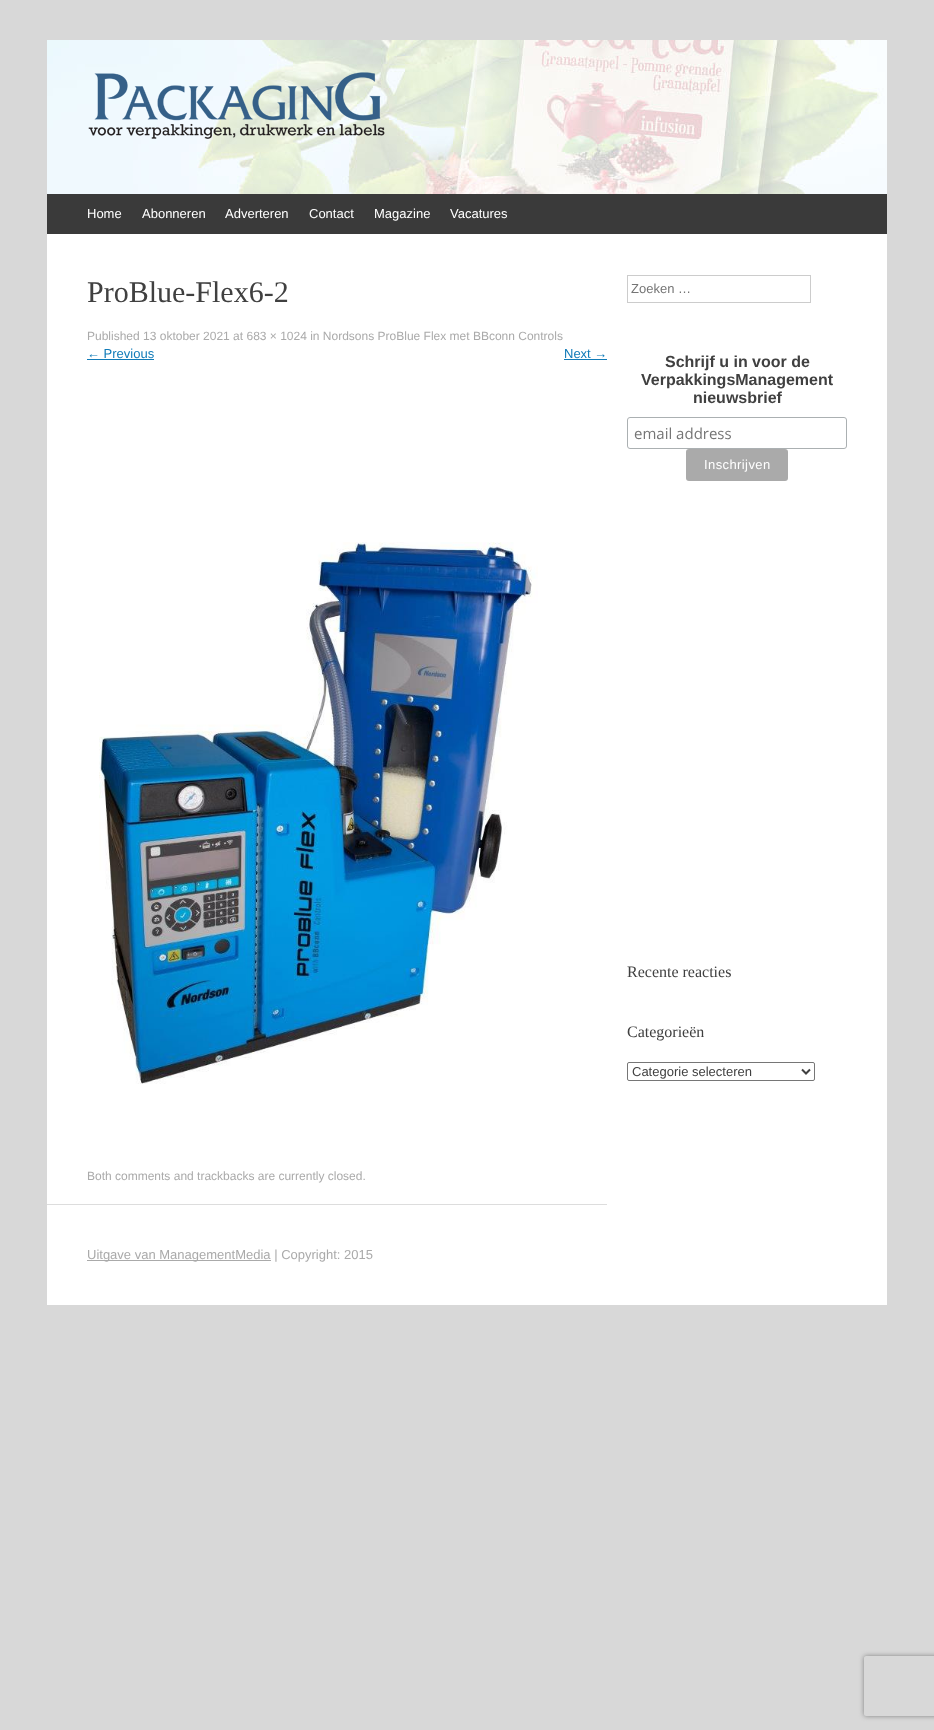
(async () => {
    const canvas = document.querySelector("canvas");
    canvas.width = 934;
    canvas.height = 1730;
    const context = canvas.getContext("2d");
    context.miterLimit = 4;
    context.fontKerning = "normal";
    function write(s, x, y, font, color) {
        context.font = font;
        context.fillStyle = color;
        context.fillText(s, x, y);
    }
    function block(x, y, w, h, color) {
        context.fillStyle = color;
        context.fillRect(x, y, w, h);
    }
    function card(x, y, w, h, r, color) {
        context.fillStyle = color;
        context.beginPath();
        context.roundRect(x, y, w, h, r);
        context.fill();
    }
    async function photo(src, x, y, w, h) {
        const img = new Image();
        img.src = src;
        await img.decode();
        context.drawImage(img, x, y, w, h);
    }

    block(0, 0, 934, 1730, "rgb(216, 216, 216)");
    block(47, 234, 840, 1071, "rgb(255, 255, 255)");
    await photo("media/1.png", 47, 40, 840, 154);
    await photo("media/2.png", 88, 72, 297, 67);
    block(47, 194, 840, 40, "rgb(58, 58, 58)");
    write("Home", 87, 218, "13px Liberation Sans", "rgb(255, 255, 255)");
    write("Abonneren", 142, 218, "13px Liberation Sans", "rgb(255, 255, 255)");
    write("Adverteren", 225, 218, "13px Liberation Sans", "rgb(255, 255, 255)");
    write("Contact", 309, 218, "13px Liberation Sans", "rgb(255, 255, 255)");
    write("Magazine", 374, 218, "13px Liberation Sans", "rgb(255, 255, 255)");
    write("Vacatures", 450, 218, "13px Liberation Sans", "rgb(255, 255, 255)");
    block(47, 1204, 560, 1, "rgb(221, 221, 221)");
    write("ProBlue-Flex6-2", 87, 302, "30px Liberation Serif", "rgb(64, 64, 64)");
    write("Published 13 oktober 2021 at 683 × 1024 in Nordsons ProBlue Flex met BBconn Controls", 87, 340, "12px Liberation Sans", "rgb(170, 170, 170)");
    write("← Previous", 87, 358, "13px Liberation Sans", "rgb(17, 123, 184)");
    block(87, 359, 67, 1, "rgb(17, 123, 184)");
    write("Next →", 564, 358, "13px Liberation Sans", "rgb(17, 123, 184)");
    block(564, 359, 43, 1, "rgb(17, 123, 184)");
    await photo("media/3.png", 99, 542, 439, 542);
    write("Both comments and trackbacks are currently closed.", 87, 1180, "12px Liberation Sans", "rgb(170, 170, 170)");
    context.strokeStyle = "rgb(204, 204, 204)";
    context.strokeRect(627.5, 275.5, 183, 27);
    write("Zoeken …", 631, 293, "13px Liberation Sans", "rgb(117, 117, 117)");
    write("Schrijf u in voor de", 665, 367, "bold 16px Liberation Sans", "rgb(64, 64, 64)");
    write("VerpakkingsManagement", 641, 385, "bold 16px Liberation Sans", "rgb(64, 64, 64)");
    write("nieuwsbrief", 693, 403, "bold 16px Liberation Sans", "rgb(64, 64, 64)");
    context.beginPath();
    context.roundRect(627.5, 417.5, 219, 31, 2.5);
    context.strokeStyle = "rgb(171, 176, 178)";
    context.stroke();
    write("email address", 634, 439, "15px Open Sans", "rgb(117, 117, 117)");
    card(686, 449, 102, 32, 3, "rgb(170, 170, 170)");
    context.letterSpacing = "0.4px";
    write("Inschrijven", 704, 469, "13px Liberation Sans", "rgb(255, 255, 255)");
    context.letterSpacing = "0px";
    write("Recente reacties", 627, 977, "16px Liberation Serif", "rgb(64, 64, 64)");
    write("Categorieën", 627, 1037, "16px Liberation Serif", "rgb(64, 64, 64)");
    context.beginPath();
    context.roundRect(627.5, 1062.5, 187, 18, 1.5);
    context.strokeStyle = "rgb(118, 118, 118)";
    context.stroke();
    context.beginPath();
    context.moveTo(802, 1069.5);
    context.lineTo(806, 1073.5);
    context.lineTo(810, 1069.5);
    context.strokeStyle = "rgb(64, 64, 64)";
    context.lineWidth = 2;
    context.stroke();
    write("Categorie selecteren", 632, 1076, "13px Liberation Sans", "rgb(64, 64, 64)");
    block(87, 1260, 184, 1, "rgb(170, 170, 170)");
    write("Uitgave van ManagementMedia | Copyright: 2015", 87, 1259, "13px Liberation Sans", "rgb(170, 170, 170)");
    context.save();
    context.beginPath();
    context.moveTo(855, 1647);
    context.lineTo(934, 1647);
    context.lineTo(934, 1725);
    context.lineTo(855, 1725);
    context.closePath();
    context.moveTo(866, 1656);
    context.lineTo(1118, 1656);
    context.bezierCurveTo(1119, 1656, 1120, 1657, 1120, 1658);
    context.lineTo(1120, 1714);
    context.bezierCurveTo(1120, 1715, 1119, 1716, 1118, 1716);
    context.lineTo(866, 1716);
    context.bezierCurveTo(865, 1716, 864, 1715, 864, 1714);
    context.lineTo(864, 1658);
    context.bezierCurveTo(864, 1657, 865, 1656, 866, 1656);
    context.closePath();
    context.clip("evenodd");
    context.fillStyle = "rgb(128, 128, 128)";
    context.filter = "blur(2.5px)";
    context.beginPath();
    context.roundRect(864, 1656, 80, 60, 2);
    context.fill();
    context.filter = "none";
    context.restore();
})();
